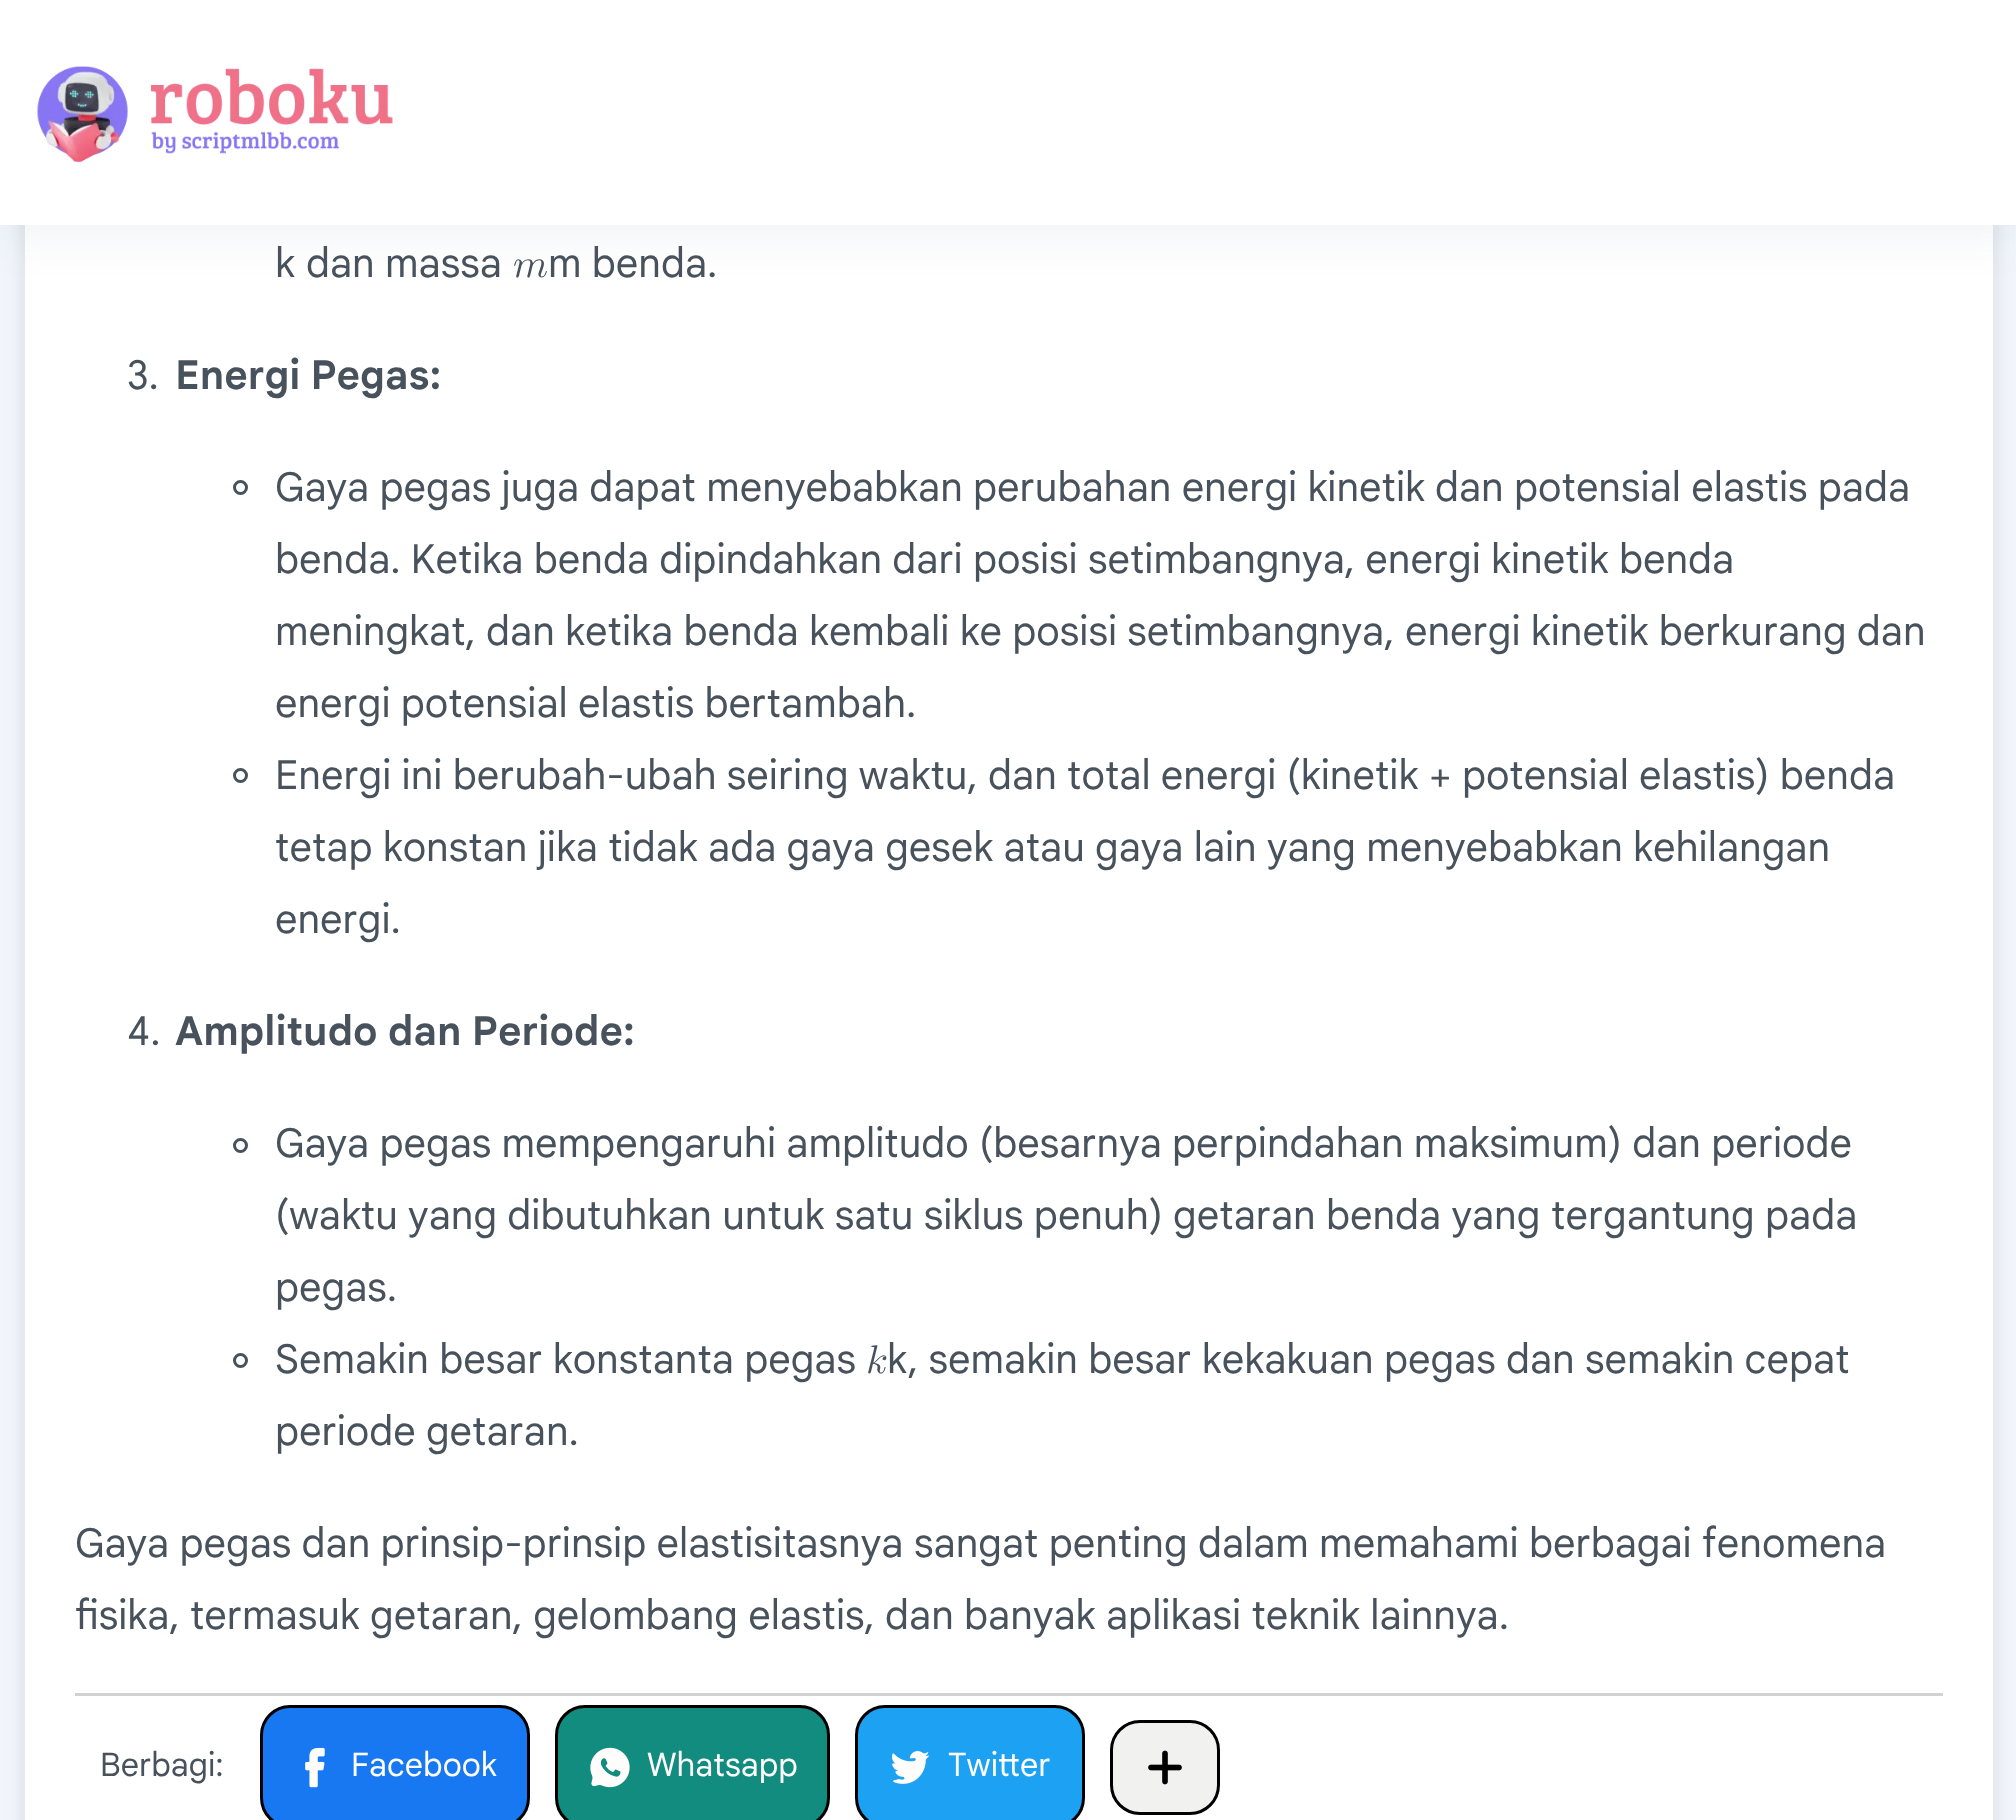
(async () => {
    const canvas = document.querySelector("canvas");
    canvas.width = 2016;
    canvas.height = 1820;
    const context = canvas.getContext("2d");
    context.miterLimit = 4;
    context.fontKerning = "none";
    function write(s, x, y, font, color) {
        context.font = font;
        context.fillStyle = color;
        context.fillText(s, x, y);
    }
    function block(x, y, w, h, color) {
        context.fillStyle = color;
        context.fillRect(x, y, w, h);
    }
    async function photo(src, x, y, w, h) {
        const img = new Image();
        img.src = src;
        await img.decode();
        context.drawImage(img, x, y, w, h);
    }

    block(0, 0, 2016, 1820, "rgb(242, 246, 252)");
    context.fillStyle = "rgba(99, 99, 99, 0.2)";
    context.filter = "blur(10px)";
    context.beginPath();
    context.roundRect(25, -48, 1968, 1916, 18);
    context.fill();
    context.filter = "none";
    block(25, 225, 1968, 1595, "rgb(255, 255, 255)");
    context.fillStyle = "rgba(9, 32, 76, 0.05)";
    context.filter = "blur(22.5px)";
    context.beginPath();
    context.rect(0, 15, 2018, 225);
    context.fill();
    context.filter = "none";
    block(0, 0, 2016, 225, "rgb(255, 255, 255)");
    await photo("media/1.png", 37, 66, 356, 96);
    write("k", 275, 277, "40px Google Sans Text", "rgb(72, 82, 92)");
    write("dan massa", 306, 277, "40px Google Sans Text", "rgb(72, 82, 92)");
    write("𝑚", 513, 277, "40px Latin Modern Math", "rgb(72, 82, 92)");
    write("m benda.", 548, 277, "40px Google Sans Text", "rgb(72, 82, 92)");
    write("3.", 127, 389, "40px Google Sans Text", "rgb(72, 82, 92)");
    write("Energi Pegas:", 175, 389, "bold 40px Google Sans Text", "rgb(72, 82, 92)");
    context.beginPath();
    context.arc(240.5, 487.5, 6, 0, Math.PI * 2);
    context.strokeStyle = "rgb(72, 82, 92)";
    context.lineWidth = 3;
    context.stroke();
    write("Gaya pegas juga dapat menyebabkan perubahan energi kinetik", 275, 501, "40px Google Sans Text", "rgb(72, 82, 92)");
    write("dan potensial elastis pada", 1435, 501, "40px Google Sans Text", "rgb(72, 82, 92)");
    write("benda. Ketika benda dipindahkan dari posisi setimbangnya, energi", 275, 573, "40px Google Sans Text", "rgb(72, 82, 92)");
    write("kinetik benda", 1491, 573, "40px Google Sans Text", "rgb(72, 82, 92)");
    write("meningkat, dan ketika benda kembali ke posisi setimbangnya,", 275, 645, "40px Google Sans Text", "rgb(72, 82, 92)");
    write("energi kinetik berkurang dan", 1405, 645, "40px Google Sans Text", "rgb(72, 82, 92)");
    write("energi potensial elastis bertambah.", 275, 717, "40px Google Sans Text", "rgb(72, 82, 92)");
    context.beginPath();
    context.arc(240.5, 775.5, 6, 0, Math.PI * 2);
    context.stroke();
    write("Energi ini berubah-ubah seiring waktu, dan total energi (kinetik + potensial", 275, 789, "40px Google Sans Text", "rgb(72, 82, 92)");
    write("elastis) benda", 1639, 789, "40px Google Sans Text", "rgb(72, 82, 92)");
    write("tetap konstan jika tidak ada gaya gesek atau", 275, 861, "40px Google Sans Text", "rgb(72, 82, 92)");
    write("gaya lain yang menyebabkan kehilangan", 1095, 861, "40px Google Sans Text", "rgb(72, 82, 92)");
    write("energi.", 275, 933, "40px Google Sans Text", "rgb(72, 82, 92)");
    write("4.", 127, 1045, "40px Google Sans Text", "rgb(72, 82, 92)");
    write("Amplitudo dan Periode:", 175, 1045, "bold 40px Google Sans Text", "rgb(72, 82, 92)");
    context.beginPath();
    context.arc(240.5, 1145.5, 6, 0, Math.PI * 2);
    context.stroke();
    write("Gaya pegas mempengaruhi amplitudo (besarnya perpindahan maksimum) dan periode", 275, 1157, "40px Google Sans Text", "rgb(72, 82, 92)");
    write("(waktu yang dibutuhkan untuk satu siklus penuh) getaran benda yang", 275, 1229, "40px Google Sans Text", "rgb(72, 82, 92)");
    write("tergantung pada", 1551, 1229, "40px Google Sans Text", "rgb(72, 82, 92)");
    write("pegas.", 275, 1301, "40px Google Sans Text", "rgb(72, 82, 92)");
    context.beginPath();
    context.arc(240.5, 1360.5, 6, 0, Math.PI * 2);
    context.stroke();
    write("Semakin besar konstanta pegas", 275, 1373, "40px Google Sans Text", "rgb(72, 82, 92)");
    write("𝑘", 866, 1373, "40px Latin Modern Math", "rgb(72, 82, 92)");
    write("k", 887, 1373, "40px Google Sans Text", "rgb(72, 82, 92)");
    write(", semakin besar kekakuan pegas dan semakin cepat", 908, 1373, "40px Google Sans Text", "rgb(72, 82, 92)");
    write("periode getaran.", 275, 1445, "40px Google Sans Text", "rgb(72, 82, 92)");
    write("Gaya pegas dan prinsip-prinsip elastisitasnya", 75, 1557, "40px Google Sans Text", "rgb(72, 82, 92)");
    write("sangat penting dalam memahami berbagai fenomena", 914, 1557, "40px Google Sans Text", "rgb(72, 82, 92)");
    write("fisika, termasuk getaran, gelombang elastis, dan banyak", 75, 1629, "40px Google Sans Text", "rgb(72, 82, 92)");
    write("aplikasi teknik lainnya.", 1106, 1629, "40px Google Sans Text", "rgb(72, 82, 92)");
    block(75, 1693, 1868, 3, "rgb(210, 210, 210)");
    write("Berbagi:", 100, 1776, "32.5px Google Sans Text", "rgb(72, 82, 92)");
    context.fillStyle = "rgb(23, 120, 242)";
    context.beginPath();
    context.roundRect(261.5, 1706.5, 267, 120, 28.5);
    context.fill();
    context.strokeStyle = "rgb(0, 0, 0)";
    context.stroke();
    await photo("media/2.png", 305, 1747, 20, 41);
    write("Facebook", 351, 1776, "32.5px Google Sans Text", "rgb(255, 253, 252)");
    context.fillStyle = "rgb(18, 140, 126)";
    context.beginPath();
    context.roundRect(556.5, 1706.5, 272, 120, 28.5);
    context.fill();
    context.stroke();
    await photo("media/3.png", 590, 1747, 40, 41);
    write("Whatsapp", 647, 1776, "32.5px Google Sans Text", "rgb(255, 253, 252)");
    context.fillStyle = "rgb(29, 161, 242)";
    context.beginPath();
    context.roundRect(856.5, 1706.5, 227, 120, 28.5);
    context.fill();
    context.stroke();
    await photo("media/4.png", 892, 1751, 37, 33);
    write("Twitter", 948, 1776, "32.5px Google Sans Text", "rgb(255, 253, 252)");
    context.fillStyle = "rgb(241, 241, 240)";
    context.beginPath();
    context.roundRect(1111.5, 1721.5, 107, 92, 28.5);
    context.fill();
    context.stroke();
    await photo("media/5.png", 1148, 1750, 34, 35);
})();
